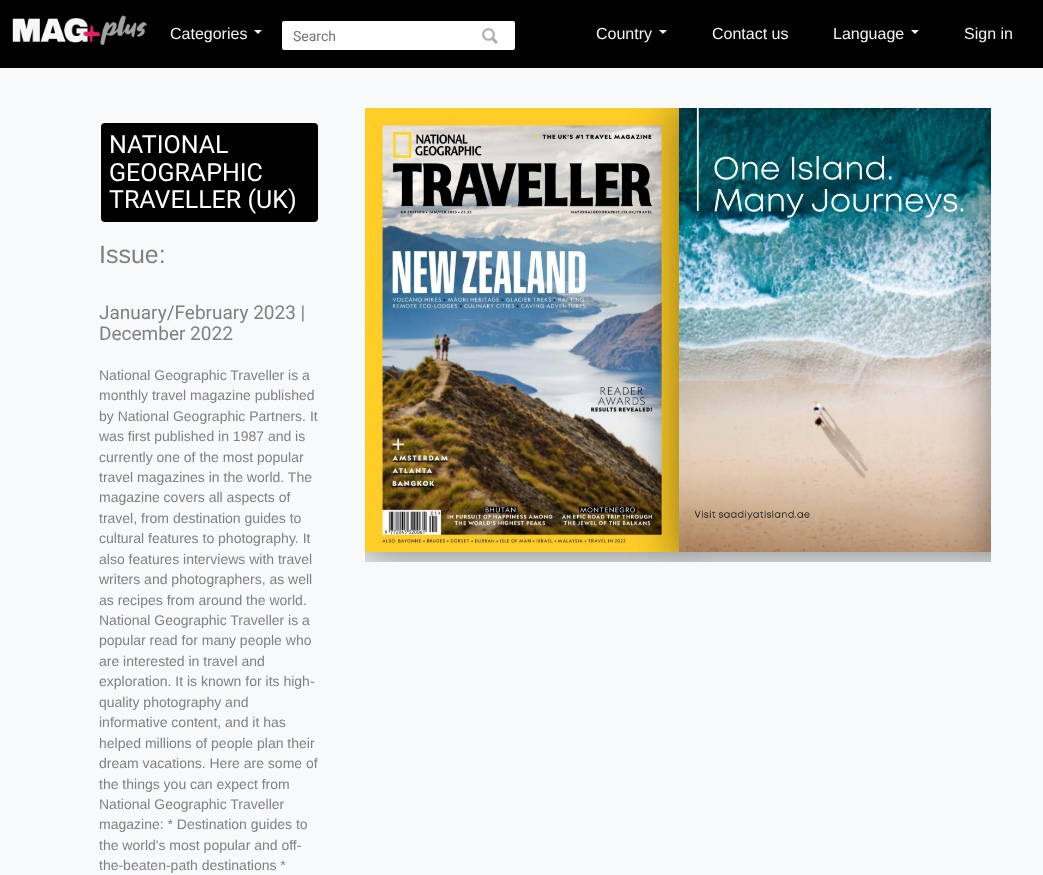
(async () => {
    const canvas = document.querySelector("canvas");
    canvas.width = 1043;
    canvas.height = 875;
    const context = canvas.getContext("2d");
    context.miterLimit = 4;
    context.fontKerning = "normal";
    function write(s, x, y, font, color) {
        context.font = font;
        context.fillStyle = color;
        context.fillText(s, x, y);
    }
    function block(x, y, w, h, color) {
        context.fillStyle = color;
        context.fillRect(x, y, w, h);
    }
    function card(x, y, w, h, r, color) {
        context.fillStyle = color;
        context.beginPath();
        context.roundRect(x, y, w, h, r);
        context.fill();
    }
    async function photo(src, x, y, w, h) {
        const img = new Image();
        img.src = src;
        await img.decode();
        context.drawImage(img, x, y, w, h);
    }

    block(0, 0, 1043, 875, "rgb(248, 249, 250)");
    block(0, 0, 1043, 68, "rgb(0, 0, 0)");
    await photo("media/1.png", 12, 15, 136, 31);
    write("Categories", 170, 39, "16px Liberation Sans", "rgb(240, 245, 245)");
    context.beginPath();
    context.moveTo(254, 30);
    context.lineTo(262, 30);
    context.lineTo(258, 34);
    context.closePath();
    context.fill();
    card(282, 21, 233, 29, 2, "rgb(255, 255, 255)");
    await photo("media/2.png", 482, 28, 16, 16);
    write("Search", 293, 41, "14px Roboto", "rgb(117, 117, 117)");
    write("Country", 596, 39, "16px Liberation Sans", "rgb(240, 245, 245)");
    context.beginPath();
    context.moveTo(659, 30);
    context.lineTo(667, 30);
    context.lineTo(663, 34);
    context.closePath();
    context.fill();
    write("Contact us", 712, 39, "16px Liberation Sans", "rgb(240, 245, 245)");
    write("Language", 833, 39, "16px Liberation Sans", "rgb(240, 245, 245)");
    context.beginPath();
    context.moveTo(911, 30);
    context.lineTo(919, 30);
    context.lineTo(915, 34);
    context.closePath();
    context.fill();
    write("Sign in", 964, 39, "16px Liberation Sans", "rgb(240, 245, 245)");
    card(101, 123, 217, 99, 4, "rgb(0, 0, 0)");
    write("NATIONAL", 109, 153, "25px Roboto", "rgb(255, 255, 255)");
    write("GEOGRAPHIC", 109, 181, "25px Roboto", "rgb(255, 255, 255)");
    write("TRAVELLER (UK)", 109, 208, "25px Roboto", "rgb(255, 255, 255)");
    write("Issue:", 99, 263, "25px Liberation Sans", "rgb(128, 128, 128)");
    write("January/February 2023 |", 99, 319, "19px Roboto", "rgb(128, 128, 128)");
    write("December 2022", 99, 340, "19px Roboto", "rgb(128, 128, 128)");
    write("National Geographic Traveller is a", 99, 380, "14px Liberation Sans", "rgb(128, 128, 128)");
    write("monthly travel magazine published", 99, 400, "14px Liberation Sans", "rgb(128, 128, 128)");
    write("by National Geographic Partners. It", 99, 421, "14px Liberation Sans", "rgb(128, 128, 128)");
    write("was first published in 1987 and is", 99, 441, "14px Liberation Sans", "rgb(128, 128, 128)");
    write("currently one of the most popular", 99, 462, "14px Liberation Sans", "rgb(128, 128, 128)");
    write("travel magazines in the world. The", 99, 482, "14px Liberation Sans", "rgb(128, 128, 128)");
    write("magazine covers all aspects of", 99, 502, "14px Liberation Sans", "rgb(128, 128, 128)");
    write("travel, from destination guides to", 99, 523, "14px Liberation Sans", "rgb(128, 128, 128)");
    write("cultural features to photography. It", 99, 543, "14px Liberation Sans", "rgb(128, 128, 128)");
    write("also features interviews with travel", 99, 564, "14px Liberation Sans", "rgb(128, 128, 128)");
    write("writers and photographers, as well", 99, 584, "14px Liberation Sans", "rgb(128, 128, 128)");
    write("as recipes from around the world.", 99, 605, "14px Liberation Sans", "rgb(128, 128, 128)");
    write("National Geographic Traveller is a", 99, 625, "14px Liberation Sans", "rgb(128, 128, 128)");
    write("popular read for many people who", 99, 645, "14px Liberation Sans", "rgb(128, 128, 128)");
    write("are interested in travel and", 99, 666, "14px Liberation Sans", "rgb(128, 128, 128)");
    write("exploration. It is known for its high-", 99, 686, "14px Liberation Sans", "rgb(128, 128, 128)");
    write("quality photography and", 99, 707, "14px Liberation Sans", "rgb(128, 128, 128)");
    write("informative content, and it has", 99, 727, "14px Liberation Sans", "rgb(128, 128, 128)");
    write("helped millions of people plan their", 99, 748, "14px Liberation Sans", "rgb(128, 128, 128)");
    write("dream vacations. Here are some of", 99, 768, "14px Liberation Sans", "rgb(128, 128, 128)");
    write("the things you can expect from", 99, 789, "14px Liberation Sans", "rgb(128, 128, 128)");
    write("National Geographic Traveller", 99, 809, "14px Liberation Sans", "rgb(128, 128, 128)");
    write("magazine: * Destination guides to", 99, 829, "14px Liberation Sans", "rgb(128, 128, 128)");
    write("the world's most popular and off-", 99, 850, "14px Liberation Sans", "rgb(128, 128, 128)");
    write("the-beaten-path destinations *", 99, 870, "14px Liberation Sans", "rgb(128, 128, 128)");
    context.save();
    context.beginPath();
    context.rect(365, 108, 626, 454);
    context.clip();
    context.fillStyle = "rgba(0, 0, 0, 0.4)";
    context.filter = "blur(20px)";
    context.beginPath();
    context.rect(360, 108, 324, 454);
    context.fill();
    context.filter = "none";
    context.restore();
    await photo("media/3.png", 365, 108, 314, 444);
    context.save();
    context.beginPath();
    context.rect(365, 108, 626, 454);
    context.clip();
    context.fillStyle = "rgba(0, 0, 0, 0.4)";
    context.filter = "blur(20px)";
    context.beginPath();
    context.rect(674, 108, 324, 454);
    context.fill();
    context.filter = "none";
    context.restore();
    await photo("media/4.png", 679, 108, 312, 444);
    context.save();
    context.beginPath();
    context.rect(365, 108, 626, 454);
    context.clip();
    context.fillStyle = "rgba(0, 0, 0, 0.4)";
    context.filter = "blur(20px)";
    context.beginPath();
    context.rect(988, 108, 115, 454);
    context.fill();
    context.filter = "none";
    context.restore();
})();
